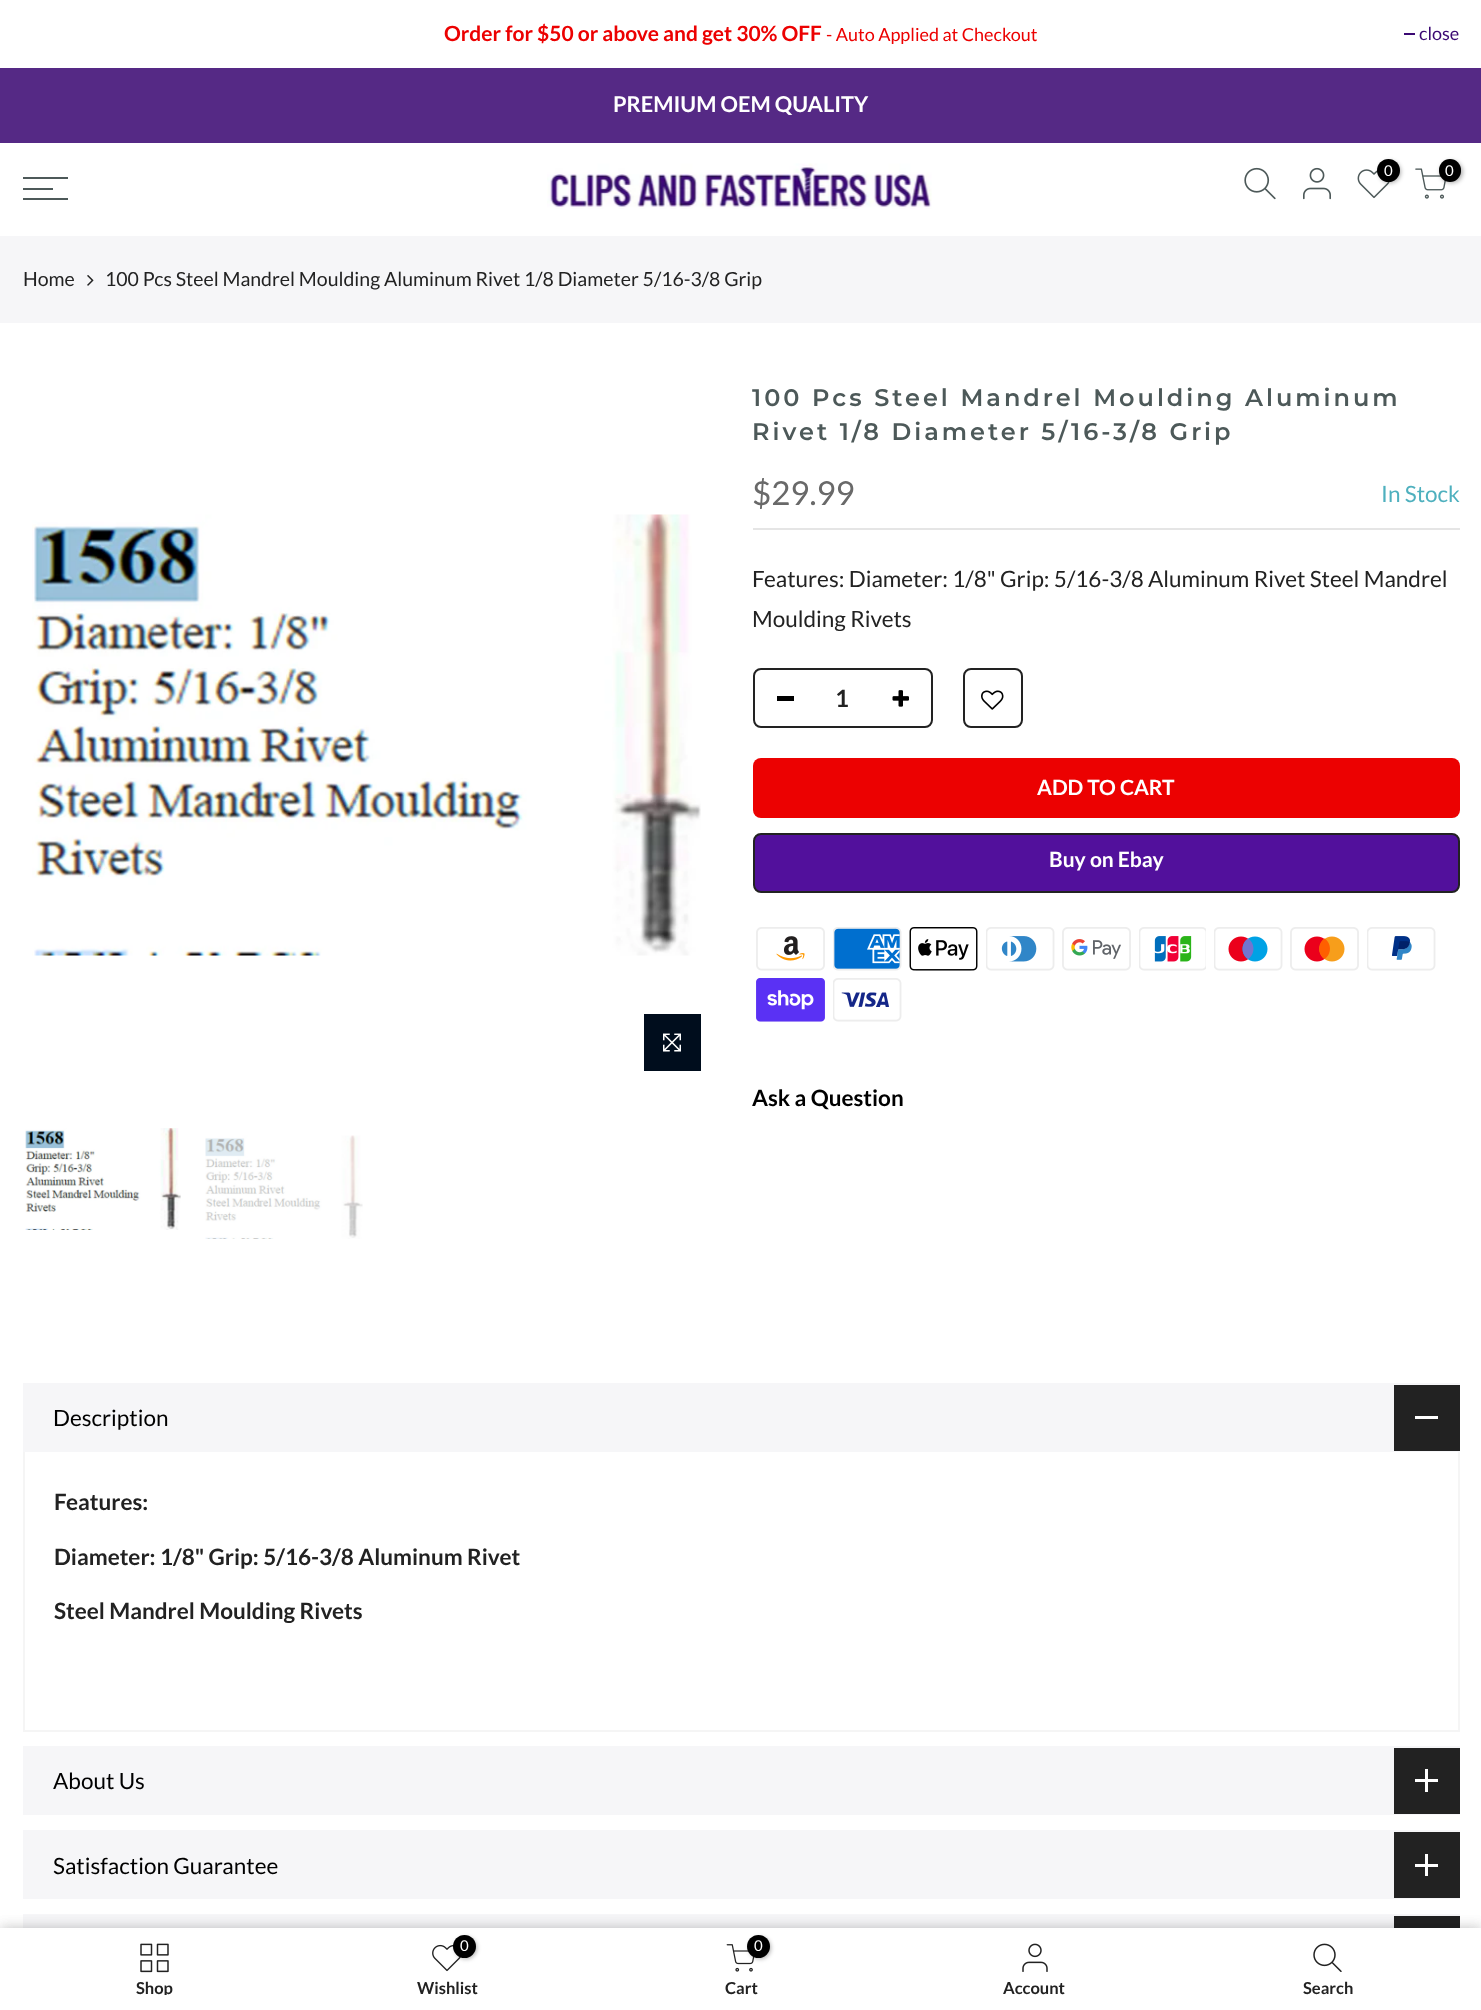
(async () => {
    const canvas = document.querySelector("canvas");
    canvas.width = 1481;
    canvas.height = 2010;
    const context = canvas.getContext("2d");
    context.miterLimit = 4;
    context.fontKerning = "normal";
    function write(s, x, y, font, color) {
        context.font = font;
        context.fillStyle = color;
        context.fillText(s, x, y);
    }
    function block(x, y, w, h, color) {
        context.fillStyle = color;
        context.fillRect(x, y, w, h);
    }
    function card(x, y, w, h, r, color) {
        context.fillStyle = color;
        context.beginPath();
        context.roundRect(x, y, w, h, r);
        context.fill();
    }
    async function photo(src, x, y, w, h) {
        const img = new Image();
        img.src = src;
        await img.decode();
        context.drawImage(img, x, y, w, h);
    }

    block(0, 0, 1481, 2010, "rgb(255, 255, 255)");
    write("Order for $50 or above and get 30% OFF", 444, 41, "bold 21px Lato", "rgb(236, 1, 1)");
    write("- Auto Applied at Checkout", 826, 41, "18px Lato", "rgb(236, 1, 1)");
    block(1404, 33, 11, 2, "rgb(59, 9, 115)");
    write("close", 1419, 40, "18px Lato", "rgb(59, 9, 115)");
    block(0, 68, 1481, 75, "rgb(85, 41, 133)");
    write("PREMIUM OEM QUALITY", 613, 112, "bold 21.75px Lato", "rgb(255, 255, 255)");
    await photo("media/1.png", 547, 163, 385, 46);
    await photo("media/2.png", 1244, 167, 32, 33);
    await photo("media/3.png", 1303, 167, 28, 33);
    await photo("media/4.png", 1357, 169, 33, 30);
    context.fillStyle = "rgba(0, 0, 0, 0.3)";
    context.filter = "blur(2px)";
    context.beginPath();
    context.roundRect(1379, 161, 22, 22, 11);
    context.fill();
    context.filter = "none";
    context.fillStyle = "rgb(0, 0, 0)";
    context.beginPath();
    context.arc(1388.5, 170.5, 11.5, 0, Math.PI * 2);
    context.fill();
    write("0", 1384, 176, "15px Lato", "rgb(255, 255, 255)");
    await photo("media/5.png", 1415, 168, 31, 31);
    context.fillStyle = "rgba(0, 0, 0, 0.3)";
    context.filter = "blur(2px)";
    context.beginPath();
    context.roundRect(1440, 161, 23, 22, 11);
    context.fill();
    context.filter = "none";
    card(1439, 159, 22, 23, 11, "rgb(0, 0, 0)");
    write("0", 1445, 176, "15px Lato", "rgb(255, 255, 255)");
    block(23, 177, 45, 2, "rgb(77, 89, 89)");
    block(23, 188, 30, 2, "rgb(77, 89, 89)");
    block(23, 198, 45, 2, "rgb(77, 89, 89)");
    block(0, 236, 1481, 87, "rgb(246, 246, 248)");
    write("Home", 23, 286, "19.5px Lato", "rgb(34, 34, 34)");
    await photo("media/6.png", 87, 275, 7, 11);
    write("100 Pcs Steel Mandrel Moulding Aluminum Rivet 1/8 Diameter 5/16-3/8 Grip", 105, 286, "19.5px Lato", "rgb(34, 34, 34)");
    await photo("media/7.png", 32, 514, 669, 442);
    block(644, 1014, 57, 57, "rgb(0, 13, 29)");
    await photo("media/8.png", 663, 1033, 18, 19);
    await photo("media/9.png", 25, 1128, 156, 102);
    await photo("media/10.png", 205, 1135, 158, 104);
    context.letterSpacing = "3px";
    write("100 Pcs Steel Mandrel Moulding Aluminum", 752, 406, "600 24px Montserrat", "rgb(77, 89, 89)");
    write("Rivet 1/8 Diameter 5/16-3/8 Grip", 752, 440, "600 24px Montserrat", "rgb(77, 89, 89)");
    block(753, 528, 707, 2, "rgb(229, 229, 229)");
    context.letterSpacing = "0px";
    write("$29.99", 752, 505, "33px Lato", "rgb(105, 105, 105)");
    write("In Stock", 1381, 502, "22.5px Lato", "rgb(78, 176, 190)");
    write("Features: Diameter: 1/8\" Grip: 5/16-3/8 Aluminum Rivet Steel Mandrel", 752, 587, "22.5px Lato", "rgb(34, 34, 34)");
    write("Moulding Rivets", 752, 627, "22.5px Lato", "rgb(34, 34, 34)");
    context.beginPath();
    context.roundRect(754, 669, 178, 58, 7);
    context.strokeStyle = "rgb(34, 34, 34)";
    context.lineWidth = 2;
    context.stroke();
    write("1", 835, 707, "bold 24px Lato", "rgb(34, 34, 34)");
    block(777, 696, 17, 5, "rgb(0, 0, 0)");
    await photo("media/11.png", 892, 690, 17, 17);
    context.beginPath();
    context.roundRect(964, 669, 58, 58, 7);
    context.stroke();
    await photo("media/12.png", 981, 690, 23, 20);
    context.beginPath();
    context.moveTo(984, 690);
    context.bezierCurveTo(986.5, 687.5, 989.5, 686, 993, 686);
    context.bezierCurveTo(1008, 686, 1010.5, 708.5, 995.5, 711.5);
    context.bezierCurveTo(991.5, 712.5, 987, 711, 984, 708);
    context.strokeStyle = "rgb(255, 255, 255)";
    context.lineWidth = 1.5;
    context.stroke();
    card(753, 758, 707, 60, 8, "rgb(236, 1, 1)");
    write("ADD TO CART", 1037, 795, "bold 21px Lato", "rgb(255, 255, 255)");
    context.fillStyle = "rgb(82, 16, 156)";
    context.beginPath();
    context.roundRect(754, 834, 705, 58, 7);
    context.fill();
    context.strokeStyle = "rgb(34, 34, 34)";
    context.lineWidth = 2;
    context.stroke();
    write("Buy on Ebay", 1049, 867, "bold 21px Lato", "rgb(255, 255, 255)");
    await photo("media/13.png", 756, 927, 69, 44);
    await photo("media/14.png", 833, 927, 69, 44);
    await photo("media/15.png", 909, 927, 69, 44);
    await photo("media/16.png", 986, 927, 69, 44);
    await photo("media/17.png", 1062, 927, 69, 44);
    await photo("media/18.png", 1139, 927, 67, 44);
    await photo("media/19.png", 1214, 927, 69, 44);
    await photo("media/20.png", 1290, 927, 69, 44);
    await photo("media/21.png", 1367, 927, 69, 44);
    await photo("media/22.png", 756, 978, 69, 44);
    await photo("media/23.png", 833, 978, 69, 44);
    write("Ask a Question", 752, 1106, "bold 22.5px Lato", "rgb(0, 0, 0)");
    block(23, 1383, 1437, 69, "rgb(246, 246, 248)");
    write("Description", 53, 1426, "22.5px Lato", "rgb(0, 0, 0)");
    block(1394, 1385, 66, 66, "rgb(34, 34, 34)");
    block(1415, 1416, 23, 3, "rgb(255, 255, 255)");
    block(1458, 1452, 2, 279, "rgb(245, 245, 245)");
    block(23, 1730, 1437, 2, "rgb(245, 245, 245)");
    block(23, 1452, 2, 279, "rgb(245, 245, 245)");
    write("Features:", 54, 1510, "bold 22.5px Lato", "rgb(34, 34, 34)");
    write("Diameter: 1/8\" Grip: 5/16-3/8 Aluminum Rivet", 54, 1565, "bold 22.5px Lato", "rgb(34, 34, 34)");
    write("Steel Mandrel Moulding Rivets", 54, 1619, "bold 22.5px Lato", "rgb(34, 34, 34)");
    block(23, 1746, 1437, 69, "rgb(246, 246, 248)");
    write("About Us", 53, 1789, "22.5px Lato", "rgb(0, 0, 0)");
    block(1394, 1748, 66, 66, "rgb(34, 34, 34)");
    block(1425, 1769, 3, 23, "rgb(255, 255, 255)");
    block(1415, 1779, 23, 3, "rgb(255, 255, 255)");
    block(23, 1830, 1437, 69, "rgb(246, 246, 248)");
    write("Satisfaction Guarantee", 53, 1874, "22.5px Lato", "rgb(0, 0, 0)");
    block(1394, 1832, 66, 66, "rgb(34, 34, 34)");
    block(1425, 1854, 3, 22, "rgb(255, 255, 255)");
    block(1415, 1864, 23, 3, "rgb(255, 255, 255)");
    block(23, 1914, 1437, 14, "rgb(246, 246, 248)");
    block(1394, 1916, 66, 12, "rgb(34, 34, 34)");
    context.fillStyle = "rgba(0, 0, 0, 0.12)";
    context.filter = "blur(7px)";
    context.beginPath();
    context.rect(0, 1928, 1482, 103);
    context.fill();
    context.filter = "none";
    context.filter = "blur(7px)";
    context.beginPath();
    context.rect(0, 1928, 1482, 82);
    context.fill();
    context.filter = "none";
    block(0, 1928, 1481, 82, "rgb(255, 255, 255)");
    await photo("media/24.png", 140, 1943, 29, 30);
    context.save();
    context.beginPath();
    context.rect(23, 1979, 264, 16);
    context.clip();
    write("Shop", 136, 1994, "bold 16.5px Lato", "rgb(34, 34, 34)");
    context.restore();
    await photo("media/25.png", 432, 1944, 29, 28);
    context.fillStyle = "rgba(0, 0, 0, 0.3)";
    context.filter = "blur(2px)";
    context.beginPath();
    context.roundRect(455, 1937, 22, 22, 11);
    context.fill();
    context.filter = "none";
    context.fillStyle = "rgb(0, 0, 0)";
    context.beginPath();
    context.arc(464.5, 1946.5, 11.5, 0, Math.PI * 2);
    context.fill();
    write("0", 460, 1951, "15px Lato", "rgb(255, 255, 255)");
    write("Wishlist", 417, 1994, "bold 16.5px Lato", "rgb(34, 34, 34)");
    await photo("media/26.png", 726, 1944, 29, 28);
    context.fillStyle = "rgba(0, 0, 0, 0.3)";
    context.filter = "blur(2px)";
    context.beginPath();
    context.roundRect(749, 1937, 22, 22, 11);
    context.fill();
    context.filter = "none";
    context.fillStyle = "rgb(0, 0, 0)";
    context.beginPath();
    context.arc(758.5, 1946.5, 11.5, 0, Math.PI * 2);
    context.fill();
    write("0", 754, 1951, "15px Lato", "rgb(255, 255, 255)");
    write("Cart", 725, 1994, "bold 16.5px Lato", "rgb(34, 34, 34)");
    await photo("media/27.png", 1022, 1943, 26, 29);
    write("Account", 1003, 1994, "bold 16.5px Lato", "rgb(34, 34, 34)");
    await photo("media/28.png", 1313, 1943, 29, 29);
    write("Search", 1303, 1994, "bold 16.5px Lato", "rgb(34, 34, 34)");
})();
